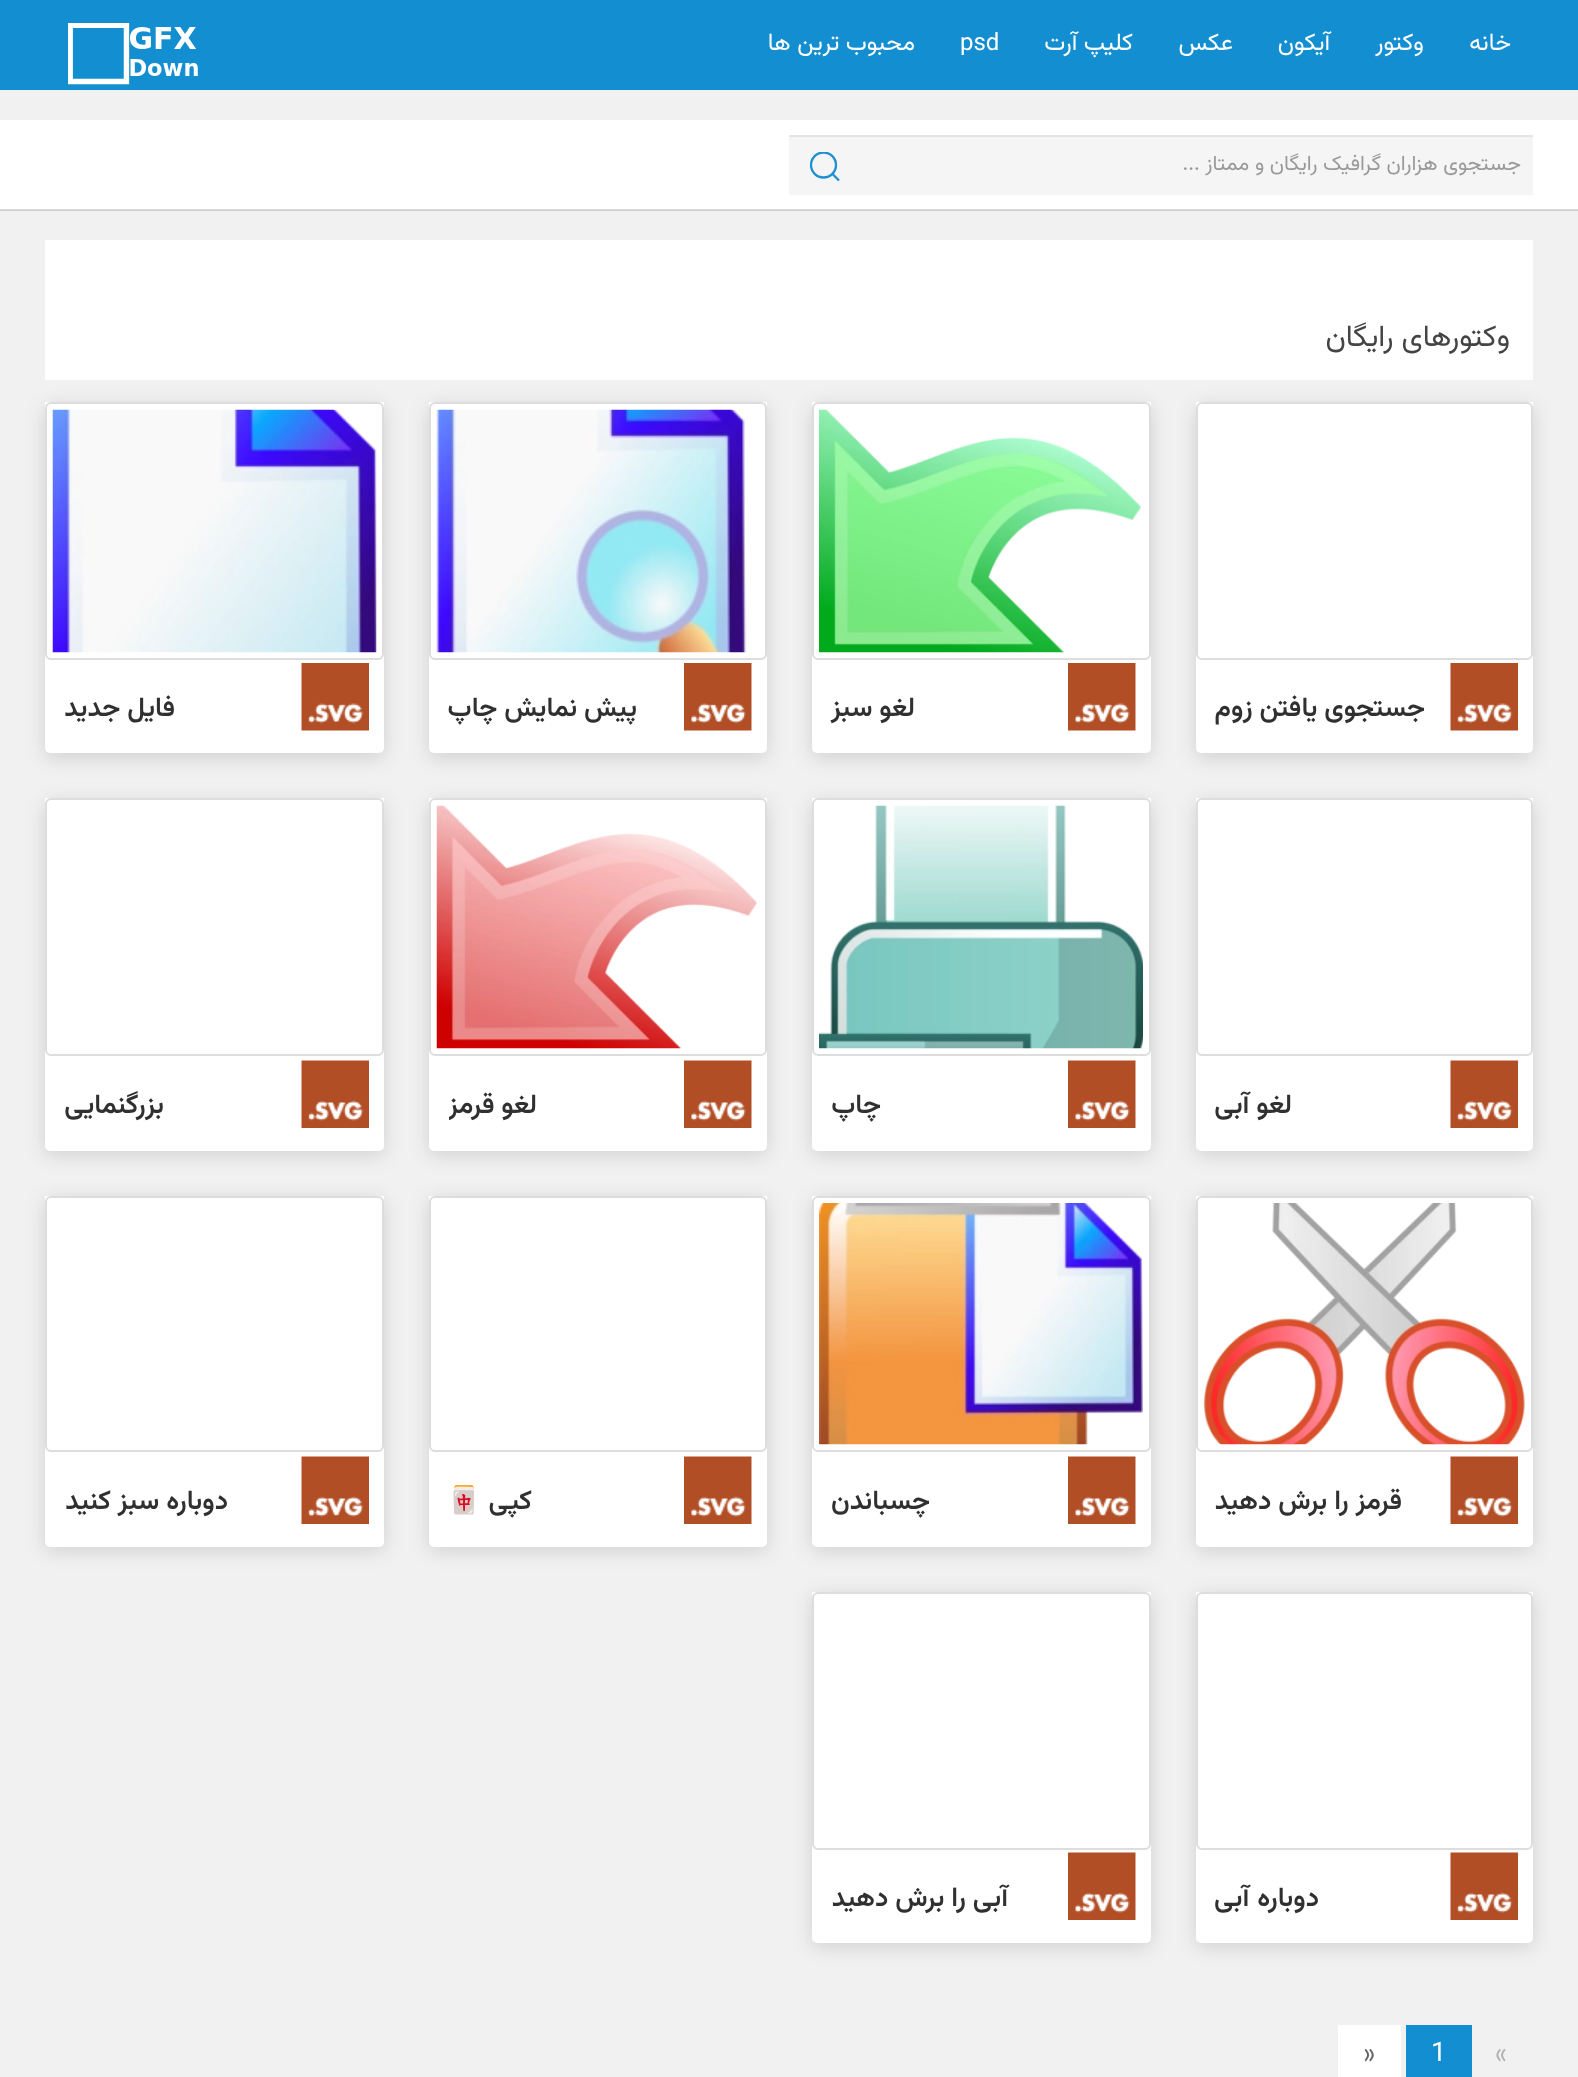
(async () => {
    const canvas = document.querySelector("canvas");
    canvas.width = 1578;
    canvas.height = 2077;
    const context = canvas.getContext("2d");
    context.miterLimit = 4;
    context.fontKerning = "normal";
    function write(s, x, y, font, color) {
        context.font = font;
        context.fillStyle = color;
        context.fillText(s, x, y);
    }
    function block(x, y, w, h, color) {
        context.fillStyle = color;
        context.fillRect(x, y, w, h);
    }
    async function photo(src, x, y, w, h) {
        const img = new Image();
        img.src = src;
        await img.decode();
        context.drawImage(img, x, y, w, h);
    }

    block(0, 0, 1578, 2077, "rgb(241, 241, 241)");
    block(0, 210, 1578, 1, "rgb(205, 205, 205)");
    block(0, 0, 1578, 90, "rgb(19, 142, 208)");
    context.direction = "rtl";
    write("خانه", 1511, 50, "24px Vazirmatn", "rgb(255, 255, 255)");
    write("وکتور", 1424, 50, "24px Vazirmatn", "rgb(255, 255, 255)");
    write("آیکون", 1330, 50, "24px Vazirmatn", "rgb(255, 255, 255)");
    write("عکس", 1233, 50, "24px Vazirmatn", "rgb(255, 255, 255)");
    write("کلیپ آرت", 1133, 50, "24px Vazirmatn", "rgb(255, 255, 255)");
    context.direction = "ltr";
    write("psd", 960, 50, "24px Vazirmatn", "rgb(255, 255, 255)");
    context.direction = "rtl";
    write("محبوب ترین ها", 915, 50, "24px Vazirmatn", "rgb(255, 255, 255)");
    await photo("media/1.png", 68, 23, 130, 62);
    block(0, 120, 1578, 89, "rgb(255, 255, 255)");
    block(0, 209, 1578, 1, "rgb(217, 217, 217)");
    block(789, 137, 744, 58, "rgb(245, 245, 245)");
    block(789, 135, 744, 2, "rgb(227, 227, 227)");
    write("جستجوی هزاران گرافیک رایگان و ممتاز ...", 1521, 170, "21px Vazirmatn", "rgb(153, 153, 153)");
    context.save();
    context.beginPath();
    context.rect(810, 152, 30, 30);
    context.clip();
    context.beginPath();
    context.arc(823.5, 165, 12.5, 0, Math.PI * 2);
    context.strokeStyle = "rgb(30, 143, 209)";
    context.lineWidth = 2.3;
    context.stroke();
    context.restore();
    context.beginPath();
    context.moveTo(839, 180.5);
    context.lineTo(832.5, 174);
    context.strokeStyle = "rgb(30, 143, 209)";
    context.lineWidth = 2.3;
    context.stroke();
    block(45, 240, 1488, 140, "rgb(255, 255, 255)");
    write("وکتورهای رایگان", 1510, 346, "30px Vazirmatn", "rgb(68, 68, 68)");
    context.fillStyle = "rgba(0, 0, 0, 0.13)";
    context.filter = "blur(10px)";
    context.beginPath();
    context.roundRect(1196, 407, 337, 351, 5);
    context.fill();
    context.filter = "none";
    context.fillStyle = "rgb(255, 255, 255)";
    context.beginPath();
    context.roundRect(1196, 402, 337, 351, [0, 0, 5, 5]);
    context.fill();
    context.beginPath();
    context.roundRect(1197, 403, 335, 256, 5);
    context.strokeStyle = "rgb(221, 221, 221)";
    context.lineWidth = 2;
    context.stroke();
    await photo("media/2.png", 1450, 663, 68, 68);
    write("جستجوی یافتن زوم", 1425, 716, "600 27px Vazirmatn", "rgb(48, 48, 48)");
    context.fillStyle = "rgba(0, 0, 0, 0.13)";
    context.filter = "blur(10px)";
    context.beginPath();
    context.roundRect(812, 407, 339, 351, 5);
    context.fill();
    context.filter = "none";
    context.fillStyle = "rgb(255, 255, 255)";
    context.beginPath();
    context.roundRect(812, 402, 339, 351, [0, 0, 5, 5]);
    context.fill();
    context.beginPath();
    context.roundRect(813, 403, 337, 256, 5);
    context.stroke();
    await photo("media/3.png", 819, 409, 322, 244);
    await photo("media/4.png", 1068, 663, 68, 68);
    write("لغو سبز", 915, 716, "600 27px Vazirmatn", "rgb(48, 48, 48)");
    context.fillStyle = "rgba(0, 0, 0, 0.13)";
    context.filter = "blur(10px)";
    context.beginPath();
    context.roundRect(429, 407, 338, 351, 5);
    context.fill();
    context.filter = "none";
    context.fillStyle = "rgb(255, 255, 255)";
    context.beginPath();
    context.roundRect(429, 402, 338, 351, [0, 0, 5, 5]);
    context.fill();
    context.beginPath();
    context.roundRect(430, 403, 336, 256, 5);
    context.stroke();
    await photo("media/5.png", 436, 409, 311, 244);
    await photo("media/6.png", 684, 663, 68, 68);
    write("پیش نمایش چاپ", 637, 716, "600 27px Vazirmatn", "rgb(48, 48, 48)");
    context.fillStyle = "rgba(0, 0, 0, 0.13)";
    context.filter = "blur(10px)";
    context.beginPath();
    context.roundRect(45, 407, 339, 351, 5);
    context.fill();
    context.filter = "none";
    context.fillStyle = "rgb(255, 255, 255)";
    context.beginPath();
    context.roundRect(45, 402, 339, 351, [0, 0, 5, 5]);
    context.fill();
    context.beginPath();
    context.roundRect(46, 403, 337, 256, 5);
    context.stroke();
    await photo("media/7.png", 52, 409, 325, 244);
    await photo("media/8.png", 301, 663, 68, 68);
    write("فایل جدید", 175, 716, "600 27px Vazirmatn", "rgb(48, 48, 48)");
    context.fillStyle = "rgba(0, 0, 0, 0.13)";
    context.filter = "blur(10px)";
    context.beginPath();
    context.roundRect(1196, 803, 337, 352, 5);
    context.fill();
    context.filter = "none";
    context.fillStyle = "rgb(255, 255, 255)";
    context.beginPath();
    context.roundRect(1196, 798, 337, 353, [0, 0, 5, 5]);
    context.fill();
    context.beginPath();
    context.roundRect(1197, 799, 335, 256, 5);
    context.stroke();
    await photo("media/9.png", 1450, 1060, 68, 68);
    write("لغو آبی", 1292, 1113, "600 27px Vazirmatn", "rgb(48, 48, 48)");
    context.fillStyle = "rgba(0, 0, 0, 0.13)";
    context.filter = "blur(10px)";
    context.beginPath();
    context.roundRect(812, 803, 339, 352, 5);
    context.fill();
    context.filter = "none";
    context.fillStyle = "rgb(255, 255, 255)";
    context.beginPath();
    context.roundRect(812, 798, 339, 353, [0, 0, 5, 5]);
    context.fill();
    context.beginPath();
    context.roundRect(813, 799, 337, 256, 5);
    context.stroke();
    await photo("media/10.png", 819, 805, 324, 244);
    await photo("media/11.png", 1068, 1060, 68, 68);
    write("چاپ", 881, 1113, "600 27px Vazirmatn", "rgb(48, 48, 48)");
    context.fillStyle = "rgba(0, 0, 0, 0.13)";
    context.filter = "blur(10px)";
    context.beginPath();
    context.roundRect(429, 803, 338, 352, 5);
    context.fill();
    context.filter = "none";
    context.fillStyle = "rgb(255, 255, 255)";
    context.beginPath();
    context.roundRect(429, 798, 338, 353, [0, 0, 5, 5]);
    context.fill();
    context.beginPath();
    context.roundRect(430, 799, 336, 256, 5);
    context.stroke();
    await photo("media/12.png", 436, 805, 321, 244);
    await photo("media/13.png", 684, 1060, 68, 68);
    context.save();
    context.beginPath();
    context.rect(449, 1089, 217, 39);
    context.clip();
    write("لغو قرمز", 537, 1113, "600 27px Vazirmatn", "rgb(48, 48, 48)");
    context.restore();
    context.fillStyle = "rgba(0, 0, 0, 0.13)";
    context.filter = "blur(10px)";
    context.beginPath();
    context.roundRect(45, 803, 339, 352, 5);
    context.fill();
    context.filter = "none";
    context.fillStyle = "rgb(255, 255, 255)";
    context.beginPath();
    context.roundRect(45, 798, 339, 353, [0, 0, 5, 5]);
    context.fill();
    context.beginPath();
    context.roundRect(46, 799, 337, 256, 5);
    context.stroke();
    await photo("media/14.png", 301, 1060, 68, 68);
    write("بزرگنمایی", 164, 1113, "600 27px Vazirmatn", "rgb(48, 48, 48)");
    context.fillStyle = "rgba(0, 0, 0, 0.13)";
    context.filter = "blur(10px)";
    context.beginPath();
    context.roundRect(1196, 1200, 337, 351, 5);
    context.fill();
    context.filter = "none";
    context.fillStyle = "rgb(255, 255, 255)";
    context.beginPath();
    context.roundRect(1196, 1196, 337, 351, [0, 0, 5, 5]);
    context.fill();
    context.beginPath();
    context.roundRect(1197, 1197, 335, 254, 5);
    context.stroke();
    await photo("media/15.png", 1203, 1203, 322, 242);
    await photo("media/9.png", 1450, 1456, 68, 68);
    write("قرمز را برش دهید", 1402, 1509, "600 27px Vazirmatn", "rgb(48, 48, 48)");
    context.fillStyle = "rgba(0, 0, 0, 0.13)";
    context.filter = "blur(10px)";
    context.beginPath();
    context.roundRect(812, 1200, 339, 351, 5);
    context.fill();
    context.filter = "none";
    context.fillStyle = "rgb(255, 255, 255)";
    context.beginPath();
    context.roundRect(812, 1196, 339, 351, [0, 0, 5, 5]);
    context.fill();
    context.beginPath();
    context.roundRect(813, 1197, 337, 254, 5);
    context.stroke();
    await photo("media/16.png", 819, 1203, 324, 242);
    await photo("media/11.png", 1068, 1456, 68, 68);
    write("چسباندن", 930, 1509, "600 27px Vazirmatn", "rgb(48, 48, 48)");
    context.fillStyle = "rgba(0, 0, 0, 0.13)";
    context.filter = "blur(10px)";
    context.beginPath();
    context.roundRect(429, 1200, 338, 351, 5);
    context.fill();
    context.filter = "none";
    context.fillStyle = "rgb(255, 255, 255)";
    context.beginPath();
    context.roundRect(429, 1196, 338, 351, [0, 0, 5, 5]);
    context.fill();
    context.beginPath();
    context.roundRect(430, 1197, 336, 254, 5);
    context.stroke();
    await photo("media/13.png", 684, 1456, 68, 68);
    write("کپی", 532, 1509, "600 27px Vazirmatn", "rgb(48, 48, 48)");
    context.save();
    context.beginPath();
    context.rect(449, 1485, 217, 39);
    context.clip();
    write("🀄", 481, 1509, "bold 27px Noto Color Emoji", "rgb(48, 48, 48)");
    context.restore();
    context.fillStyle = "rgba(0, 0, 0, 0.13)";
    context.filter = "blur(10px)";
    context.beginPath();
    context.roundRect(45, 1200, 339, 351, 5);
    context.fill();
    context.filter = "none";
    context.fillStyle = "rgb(255, 255, 255)";
    context.beginPath();
    context.roundRect(45, 1196, 339, 351, [0, 0, 5, 5]);
    context.fill();
    context.beginPath();
    context.roundRect(46, 1197, 337, 254, 5);
    context.stroke();
    await photo("media/14.png", 301, 1456, 68, 68);
    write("دوباره سبز کنید", 228, 1509, "600 27px Vazirmatn", "rgb(48, 48, 48)");
    context.fillStyle = "rgba(0, 0, 0, 0.13)";
    context.filter = "blur(10px)";
    context.beginPath();
    context.roundRect(1196, 1596, 337, 351, 5);
    context.fill();
    context.filter = "none";
    context.fillStyle = "rgb(255, 255, 255)";
    context.beginPath();
    context.roundRect(1196, 1592, 337, 351, [0, 0, 5, 5]);
    context.fill();
    context.beginPath();
    context.roundRect(1197, 1593, 335, 256, 5);
    context.stroke();
    await photo("media/9.png", 1450, 1852, 68, 68);
    context.wordSpacing = "1px";
    write("دوباره آبی", 1319, 1906, "600 27px Vazirmatn", "rgb(48, 48, 48)");
    context.fillStyle = "rgba(0, 0, 0, 0.13)";
    context.filter = "blur(10px)";
    context.beginPath();
    context.roundRect(812, 1596, 339, 351, 5);
    context.fill();
    context.filter = "none";
    context.fillStyle = "rgb(255, 255, 255)";
    context.beginPath();
    context.roundRect(812, 1592, 339, 351, [0, 0, 5, 5]);
    context.fill();
    context.beginPath();
    context.roundRect(813, 1593, 337, 256, 5);
    context.stroke();
    await photo("media/11.png", 1068, 1852, 68, 68);
    context.wordSpacing = "0px";
    write("آبی را برش دهید", 1008, 1906, "600 27px Vazirmatn", "rgb(48, 48, 48)");
    context.direction = "ltr";
    write("«", 1495, 2061, "27px Vazirmatn", "rgb(179, 179, 179)");
    block(1406, 2025, 66, 52, "rgb(19, 142, 208)");
    write("1", 1431, 2061, "27px Vazirmatn", "rgb(255, 255, 255)");
    block(1338, 2025, 63, 52, "rgb(255, 255, 255)");
    write("»", 1363, 2061, "27px Vazirmatn", "rgb(102, 102, 102)");
})();
